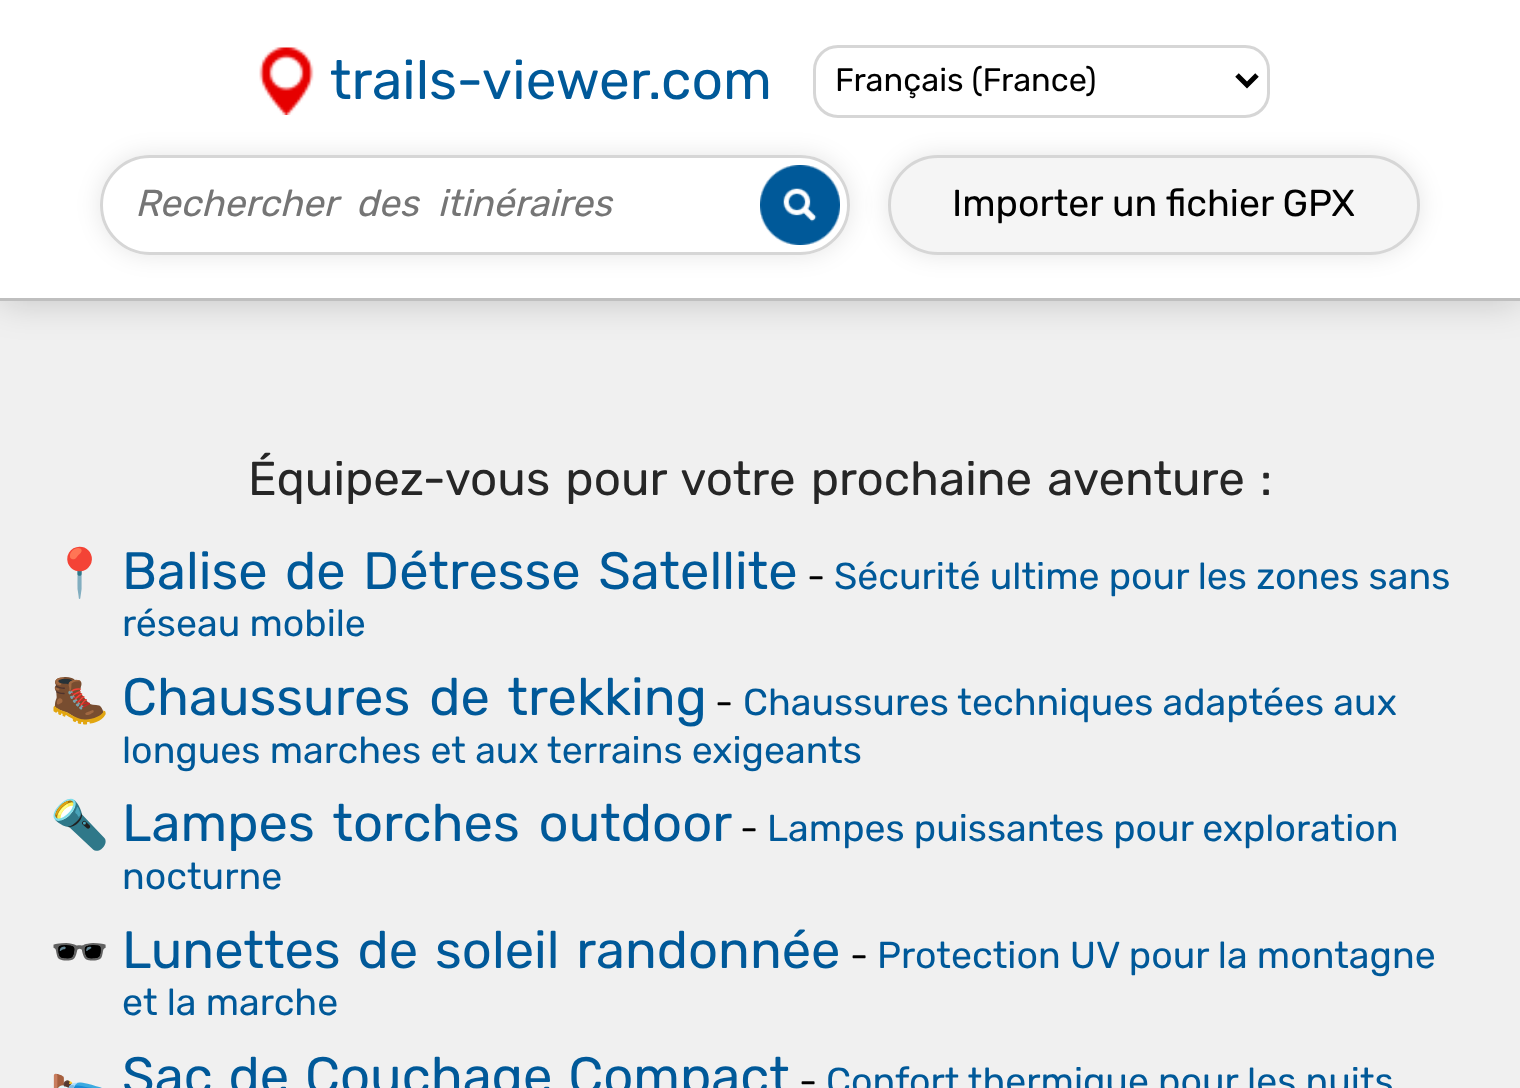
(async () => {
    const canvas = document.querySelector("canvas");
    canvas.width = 1520;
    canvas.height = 1088;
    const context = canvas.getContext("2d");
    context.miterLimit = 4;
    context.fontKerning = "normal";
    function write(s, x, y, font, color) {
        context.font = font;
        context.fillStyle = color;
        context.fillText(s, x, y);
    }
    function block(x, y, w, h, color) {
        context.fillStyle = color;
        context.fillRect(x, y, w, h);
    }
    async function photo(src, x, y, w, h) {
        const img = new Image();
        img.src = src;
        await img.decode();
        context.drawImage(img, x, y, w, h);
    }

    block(0, 0, 1520, 1088, "rgb(240, 240, 240)");
    context.fillStyle = "rgba(0, 0, 0, 0.2)";
    context.filter = "blur(19px)";
    context.beginPath();
    context.rect(0, 0, 1520, 300);
    context.fill();
    context.filter = "none";
    block(0, 0, 1520, 298, "rgb(255, 255, 255)");
    block(0, 298, 1520, 3, "rgb(191, 191, 191)");
    await photo("media/1.png", 259, 47, 55, 68);
    write("trails-viewer.com", 330, 99, "55px Rubik", "rgb(0, 89, 153)");
    context.beginPath();
    context.roundRect(814.5, 46.5, 454, 70, 23.5);
    context.strokeStyle = "rgb(214, 214, 214)";
    context.lineWidth = 3;
    context.stroke();
    context.beginPath();
    context.moveTo(1237, 75);
    context.lineTo(1247, 85);
    context.lineTo(1257, 75);
    context.strokeStyle = "rgb(0, 0, 0)";
    context.lineWidth = 5;
    context.stroke();
    write("Français (France)", 835, 91, "32.5px Rubik", "rgb(0, 0, 0)");
    context.save();
    context.beginPath();
    context.moveTo(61, 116);
    context.lineTo(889, 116);
    context.lineTo(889, 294);
    context.lineTo(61, 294);
    context.closePath();
    context.moveTo(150, 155);
    context.lineTo(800, 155);
    context.bezierCurveTo(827.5, 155, 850, 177.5, 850, 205);
    context.bezierCurveTo(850, 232.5, 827.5, 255, 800, 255);
    context.lineTo(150, 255);
    context.bezierCurveTo(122.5, 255, 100, 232.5, 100, 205);
    context.bezierCurveTo(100, 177.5, 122.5, 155, 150, 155);
    context.closePath();
    context.clip("evenodd");
    context.fillStyle = "rgba(0, 0, 0, 0.1)";
    context.filter = "blur(12.5px)";
    context.beginPath();
    context.roundRect(100, 155, 750, 100, 50);
    context.fill();
    context.filter = "none";
    context.restore();
    context.beginPath();
    context.roundRect(101.5, 156.5, 747, 97, 48.5);
    context.strokeStyle = "rgb(214, 214, 214)";
    context.lineWidth = 3;
    context.stroke();
    context.wordSpacing = "10px";
    write("Rechercher des itinéraires", 135, 216, "italic 37.5px Rubik", "rgb(117, 117, 117)");
    await photo("media/2.png", 760, 165, 80, 80);
    context.fillStyle = "rgba(0, 0, 0, 0.1)";
    context.filter = "blur(12.5px)";
    context.beginPath();
    context.roundRect(888, 155, 532, 100, 50);
    context.fill();
    context.filter = "none";
    context.fillStyle = "rgb(245, 245, 245)";
    context.beginPath();
    context.roundRect(889.5, 156.5, 529, 97, 48.5);
    context.fill();
    context.stroke();
    context.wordSpacing = "0px";
    write("Importer un fichier GPX", 952, 216, "37.5px Rubik", "rgb(0, 0, 0)");
    context.wordSpacing = "3.5px";
    write("Équipez-vous pour votre prochaine aventure :", 248, 495, "47.5px Rubik", "rgb(38, 38, 38)");
    context.wordSpacing = "0px";
    write("📍", 50, 589, "47.5px Noto Color Emoji", "rgb(0, 0, 0)");
    context.wordSpacing = "4.5px";
    write("Balise de Détresse Satellite", 122, 589, "52.5px Rubik", "rgb(0, 89, 153)");
    context.wordSpacing = "0px";
    write("-", 807, 589, "37.5px Rubik", "rgb(0, 0, 0)");
    write("Sécurité ultime pour les zones sans", 834, 589, "37.5px Rubik", "rgb(0, 89, 153)");
    write("réseau mobile", 122, 636, "37.5px Rubik", "rgb(0, 89, 153)");
    write("🥾", 50, 715, "47.5px Noto Color Emoji", "rgb(0, 0, 0)");
    context.wordSpacing = "6px";
    write("Chaussures de trekking", 122, 715, "52.5px Rubik", "rgb(0, 89, 153)");
    context.wordSpacing = "0px";
    write("-", 715, 715, "37.5px Rubik", "rgb(0, 0, 0)");
    write("Chaussures techniques adaptées aux", 743, 715, "37.5px Rubik", "rgb(0, 89, 153)");
    write("longues marches et aux terrains exigeants", 122, 763, "37.5px Rubik", "rgb(0, 89, 153)");
    write("🔦", 50, 841, "47.5px Noto Color Emoji", "rgb(0, 0, 0)");
    context.wordSpacing = "6px";
    write("Lampes torches outdoor", 122, 841, "52.5px Rubik", "rgb(0, 89, 153)");
    context.wordSpacing = "0px";
    write("-", 740, 841, "37.5px Rubik", "rgb(0, 0, 0)");
    write("Lampes puissantes pour exploration", 767, 841, "37.5px Rubik", "rgb(0, 89, 153)");
    write("nocturne", 122, 889, "37.5px Rubik", "rgb(0, 89, 153)");
    write("🕶️", 50, 968, "47.5px Noto Color Emoji", "rgb(0, 0, 0)");
    context.wordSpacing = "4px";
    write("Lunettes de soleil randonnée", 122, 968, "52.5px Rubik", "rgb(0, 89, 153)");
    context.wordSpacing = "0px";
    write("-", 850, 968, "37.5px Rubik", "rgb(0, 0, 0)");
    write("Protection UV pour la montagne", 877, 968, "37.5px Rubik", "rgb(0, 89, 153)");
    write("et la marche", 122, 1015, "37.5px Rubik", "rgb(0, 89, 153)");
    write("🛌", 50, 1094, "47.5px Noto Color Emoji", "rgb(0, 0, 0)");
    context.wordSpacing = "3px";
    write("Sac de Couchage Compact", 122, 1094, "52.5px Rubik", "rgb(0, 89, 153)");
    context.wordSpacing = "0px";
    write("-", 799, 1094, "37.5px Rubik", "rgb(0, 0, 0)");
    write("Confort thermique pour les nuits", 826, 1094, "37.5px Rubik", "rgb(0, 89, 153)");
})();
